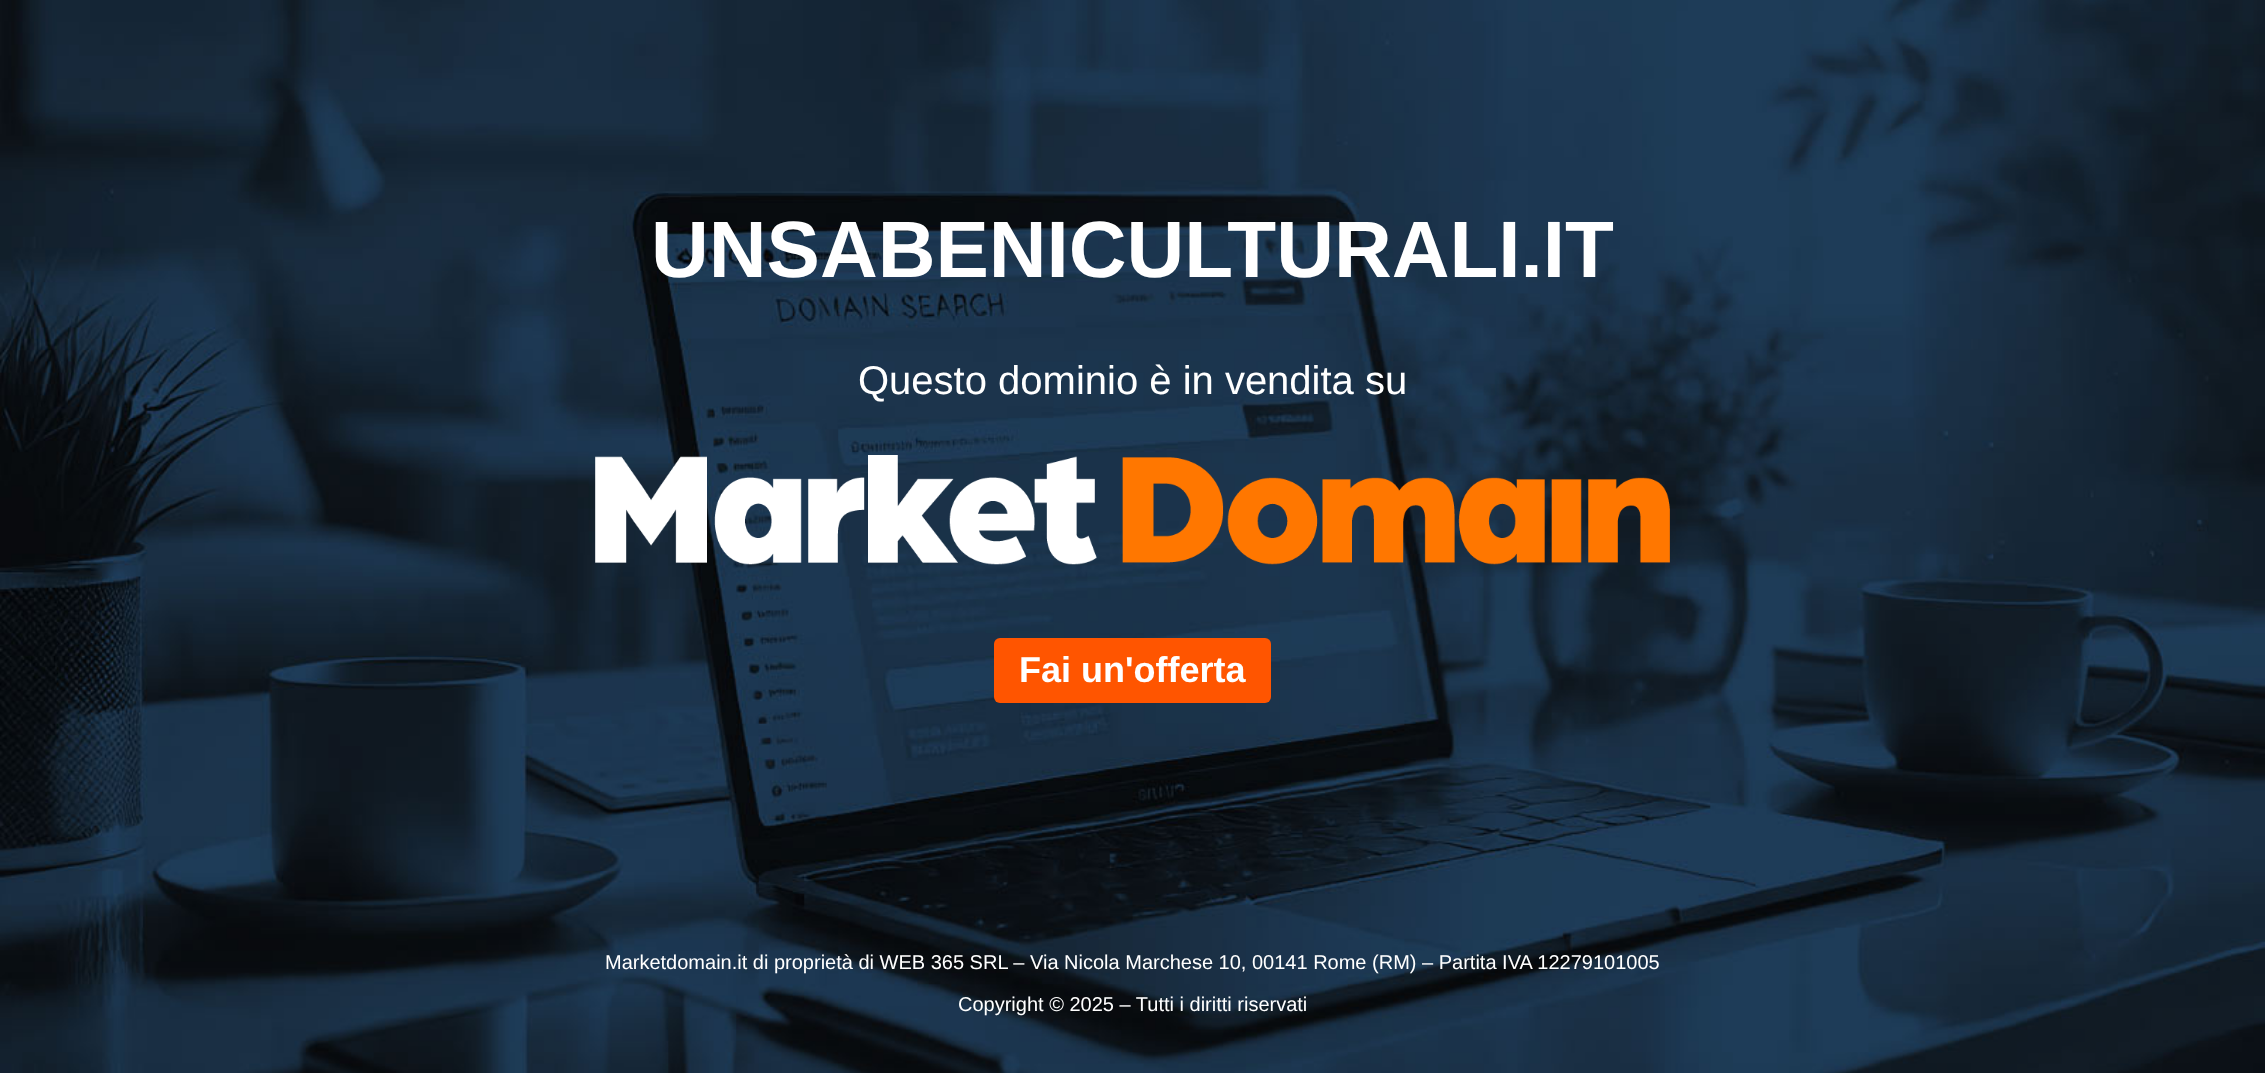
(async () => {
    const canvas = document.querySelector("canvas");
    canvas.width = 2265;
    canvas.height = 1073;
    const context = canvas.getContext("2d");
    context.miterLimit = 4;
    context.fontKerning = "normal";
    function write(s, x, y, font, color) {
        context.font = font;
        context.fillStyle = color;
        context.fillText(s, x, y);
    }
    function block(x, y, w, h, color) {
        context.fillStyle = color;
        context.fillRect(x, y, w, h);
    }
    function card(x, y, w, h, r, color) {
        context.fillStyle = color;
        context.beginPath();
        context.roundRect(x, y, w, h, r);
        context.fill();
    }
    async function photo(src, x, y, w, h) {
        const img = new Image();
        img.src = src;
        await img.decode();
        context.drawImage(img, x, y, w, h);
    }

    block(0, 0, 2265, 1073, "rgb(255, 255, 255)");
    await photo("media/1.png", 0, 0, 2265, 1073);
    write("UNSABENICULTURALI.IT", 651, 277, "bold 80px Liberation Sans", "rgb(255, 255, 255)");
    write("Questo dominio è in vendita su", 858, 394, "40px Liberation Sans", "rgb(255, 255, 255)");
    await photo("media/2.png", 595, 455, 1075, 110);
    card(994, 638, 277, 65, 6, "rgb(255, 85, 0)");
    write("Fai un'offerta", 1019, 682, "bold 36px Liberation Sans", "rgb(255, 255, 255)");
    write("Marketdomain.it di proprietà di WEB 365 SRL – Via Nicola Marchese 10, 00141 Rome (RM) – Partita IVA 12279101005", 605, 969, "20px Liberation Sans", "rgb(255, 255, 255)");
    write("Copyright © 2025 – Tutti i diritti riservati", 958, 1011, "20px Liberation Sans", "rgb(255, 255, 255)");
})();
